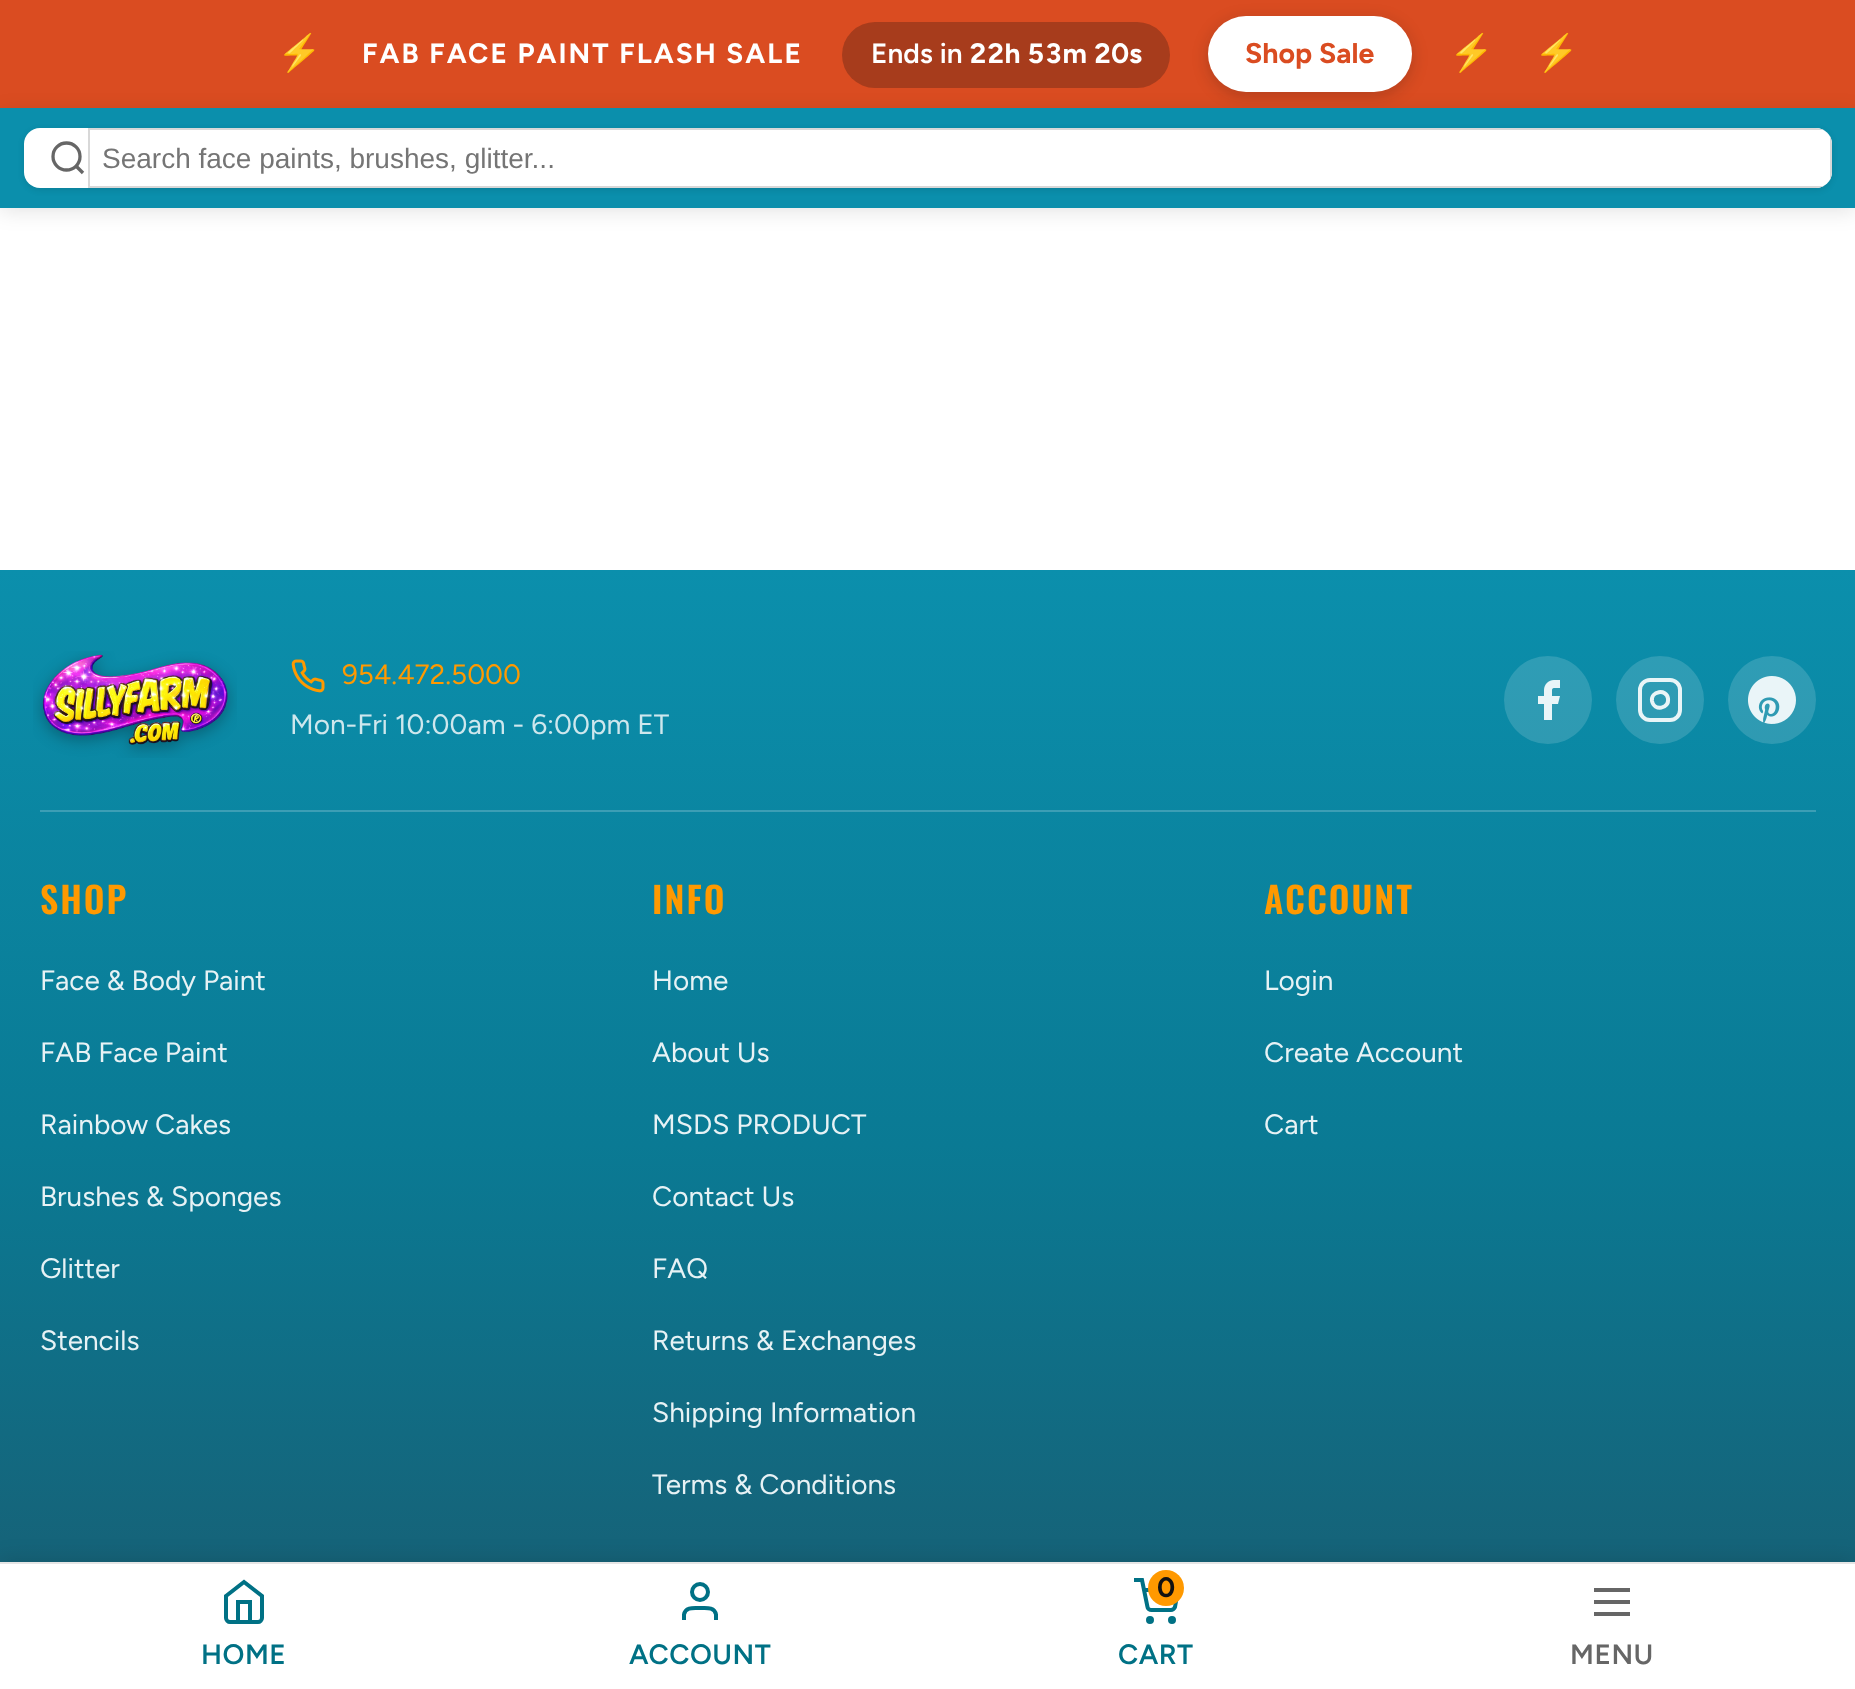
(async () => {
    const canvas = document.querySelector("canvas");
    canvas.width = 1855;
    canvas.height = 1689;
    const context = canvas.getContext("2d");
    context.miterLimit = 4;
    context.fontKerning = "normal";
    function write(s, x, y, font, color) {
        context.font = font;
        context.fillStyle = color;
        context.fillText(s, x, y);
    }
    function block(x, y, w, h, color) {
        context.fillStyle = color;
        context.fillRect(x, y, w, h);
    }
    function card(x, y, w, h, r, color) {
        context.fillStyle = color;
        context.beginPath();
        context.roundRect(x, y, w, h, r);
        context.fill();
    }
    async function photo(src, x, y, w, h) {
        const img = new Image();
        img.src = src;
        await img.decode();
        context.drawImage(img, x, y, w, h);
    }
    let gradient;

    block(0, 0, 1855, 1689, "rgb(255, 255, 255)");
    block(0, 0, 1855, 108, "rgb(218, 76, 33)");
    write("⚡", 277, 65, "36px Noto Color Emoji", "rgb(255, 255, 255)");
    context.letterSpacing = "2px";
    write("FAB FACE PAINT FLASH SALE", 362, 63, "bold 28px Figtree", "rgb(255, 255, 255)");
    card(842, 22, 328, 66, 33, "rgb(167, 60, 28)");
    context.letterSpacing = "0px";
    write("Ends in", 871, 63, "600 28px Figtree", "rgb(255, 255, 255)");
    write("22h 53m 20s", 969, 63, "bold 28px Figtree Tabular", "rgb(255, 255, 255)");
    context.fillStyle = "rgba(13, 13, 13, 0.2)";
    context.filter = "blur(8px)";
    context.beginPath();
    context.roundRect(1208, 20, 204, 76, 38);
    context.fill();
    context.filter = "none";
    card(1208, 16, 204, 76, 38, "rgb(255, 255, 255)");
    write("Shop Sale", 1245, 63, "bold 28.5px Figtree", "rgb(218, 76, 33)");
    write("⚡", 1449, 65, "36px Noto Color Emoji", "rgb(255, 255, 255)");
    write("⚡", 1534, 65, "36px Noto Color Emoji", "rgb(255, 255, 255)");
    context.fillStyle = "rgba(0, 0, 0, 0.1)";
    context.filter = "blur(10px)";
    context.beginPath();
    context.rect(0, 112, 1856, 100);
    context.fill();
    context.filter = "none";
    block(0, 108, 1855, 100, "rgb(11, 143, 172)");
    context.fillStyle = "rgba(0, 0, 0, 0.1)";
    context.filter = "blur(3px)";
    context.beginPath();
    context.roundRect(24, 130, 1808, 60, 16);
    context.fill();
    context.filter = "none";
    card(24, 128, 1808, 60, 16, "rgb(255, 255, 255)");
    context.beginPath();
    context.arc(66.5, 156.5, 13.5, 0, Math.PI * 2);
    context.strokeStyle = "rgb(102, 102, 102)";
    context.lineWidth = 3.3;
    context.stroke();
    context.beginPath();
    context.moveTo(83, 173);
    context.lineTo(76, 166);
    context.stroke();
    context.fillStyle = "rgb(216, 216, 216)";
    context.beginPath();
    context.moveTo(88, 128);
    context.lineTo(88, 188);
    context.lineTo(1816, 188);
    context.bezierCurveTo(1819, 188, 1821, 187, 1824, 186);
    context.lineTo(90, 186);
    context.lineTo(90, 130);
    context.lineTo(1824, 130);
    context.bezierCurveTo(1821, 129, 1819, 128, 1816, 128);
    context.closePath();
    context.moveTo(1832, 144);
    context.bezierCurveTo(1832, 141, 1831, 139, 1830, 136);
    context.lineTo(1830, 180);
    context.bezierCurveTo(1831, 177, 1832, 175, 1832, 172);
    context.closePath();
    context.fill("evenodd");
    write("Search face paints, brushes, glitter...", 102, 168, "28px Liberation Sans", "rgb(117, 117, 117)");
    gradient = context.createLinearGradient(928, 570, 928, 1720);
    gradient.addColorStop(0, "rgb(11, 143, 172)");
    gradient.addColorStop(0.5, "rgb(10, 122, 148)");
    gradient.addColorStop(1, "rgb(26, 90, 110)");
    context.fillStyle = gradient;
    context.fillRect(0, 570, 1855, 992);
    block(40, 810, 1776, 2, "rgb(60, 158, 181)");
    await photo("media/1.png", 33, 651, 204, 107);
    await photo("media/2.png", 291, 659, 34, 34);
    write("954.472.5000", 342, 684, "28px Figtree", "rgb(255, 153, 0)");
    write("Mon-Fri 10:00am - 6:00pm ET", 290, 734, "28px Figtree", "rgb(206, 231, 237)");
    context.fillStyle = "rgba(255, 255, 255, 0.15)";
    context.beginPath();
    context.arc(1548, 700, 44, 0, Math.PI * 2);
    context.fill();
    await photo("media/3.png", 1538, 680, 22, 40);
    context.beginPath();
    context.arc(1660, 700, 44, 0, Math.PI * 2);
    context.fill();
    context.beginPath();
    context.roundRect(1640, 680, 40, 40, 10);
    context.strokeStyle = "rgb(234, 245, 247)";
    context.lineWidth = 4;
    context.stroke();
    context.beginPath();
    context.moveTo(1668, 698.5);
    context.bezierCurveTo(1669.5, 709, 1654, 711.5, 1652, 701);
    context.bezierCurveTo(1650.5, 691, 1666.5, 688.5, 1668, 698.5);
    context.closePath();
    context.stroke();
    context.beginPath();
    context.arc(1772, 700, 44, 0, Math.PI * 2);
    context.fill();
    await photo("media/4.png", 1748, 676, 48, 48);
    context.letterSpacing = "2px";
    write("SHOP", 40, 914, "600 36px Oswald", "rgb(255, 153, 0)");
    context.letterSpacing = "0px";
    write("Face & Body Paint", 40, 990, "28px Figtree", "rgb(231, 242, 245)");
    write("FAB Face Paint", 40, 1062, "28px Figtree", "rgb(231, 242, 245)");
    write("Rainbow Cakes", 40, 1134, "28px Figtree", "rgb(231, 242, 245)");
    write("Brushes & Sponges", 40, 1206, "28px Figtree", "rgb(231, 242, 245)");
    write("Glitter", 40, 1278, "28px Figtree", "rgb(231, 242, 245)");
    write("Stencils", 40, 1350, "28px Figtree", "rgb(231, 242, 245)");
    context.letterSpacing = "2px";
    write("INFO", 652, 914, "600 36px Oswald", "rgb(255, 153, 0)");
    context.letterSpacing = "0px";
    write("Home", 652, 990, "28px Figtree", "rgb(231, 242, 245)");
    write("About Us", 652, 1062, "28px Figtree", "rgb(231, 242, 245)");
    write("MSDS PRODUCT", 652, 1134, "28px Figtree", "rgb(231, 242, 245)");
    write("Contact Us", 652, 1206, "28px Figtree", "rgb(231, 242, 245)");
    write("FAQ", 652, 1278, "28px Figtree", "rgb(231, 242, 245)");
    write("Returns & Exchanges", 652, 1350, "28px Figtree", "rgb(231, 242, 245)");
    write("Shipping Information", 652, 1422, "28px Figtree", "rgb(231, 242, 245)");
    write("Terms & Conditions", 652, 1494, "28px Figtree", "rgb(231, 242, 245)");
    context.letterSpacing = "2px";
    write("ACCOUNT", 1264, 914, "600 36px Oswald", "rgb(255, 153, 0)");
    context.letterSpacing = "0px";
    write("Login", 1264, 990, "28px Figtree", "rgb(231, 242, 245)");
    write("Create Account", 1264, 1062, "28px Figtree", "rgb(231, 242, 245)");
    write("Cart", 1264, 1134, "28px Figtree", "rgb(231, 242, 245)");
    context.fillStyle = "rgba(0, 0, 0, 0.1)";
    context.filter = "blur(10px)";
    context.beginPath();
    context.rect(0, 1558, 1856, 128);
    context.fill();
    context.filter = "none";
    block(0, 1564, 1855, 125, "rgb(255, 255, 255)");
    block(0, 1562, 1855, 2, "rgb(229, 229, 229)");
    context.beginPath();
    context.moveTo(226, 1596);
    context.lineTo(244, 1582);
    context.lineTo(262, 1596);
    context.lineTo(262, 1618);
    context.bezierCurveTo(262, 1620, 260, 1622, 258, 1622);
    context.lineTo(230, 1622);
    context.bezierCurveTo(228, 1622, 226, 1620, 226, 1618);
    context.closePath();
    context.moveTo(238, 1622);
    context.lineTo(238, 1602);
    context.lineTo(250, 1602);
    context.lineTo(250, 1622);
    context.strokeStyle = "rgb(0, 113, 133)";
    context.stroke();
    context.letterSpacing = "0.5px";
    write("HOME", 201, 1664, "600 28px Figtree", "rgb(0, 113, 133)");
    context.beginPath();
    context.moveTo(716, 1620);
    context.lineTo(716, 1614.5);
    context.bezierCurveTo(714.5, 1606.5, 706, 1608, 700, 1608);
    context.bezierCurveTo(694, 1608, 685.5, 1606.5, 684, 1614.5);
    context.lineTo(684, 1620);
    context.stroke();
    context.beginPath();
    context.arc(700, 1592, 8, 0, Math.PI * 2);
    context.stroke();
    write("ACCOUNT", 629, 1664, "600 28px Figtree", "rgb(0, 113, 133)");
    context.beginPath();
    context.moveTo(1134, 1580);
    context.lineTo(1142, 1580);
    context.lineTo(1147.5, 1607);
    context.bezierCurveTo(1147.5, 1608.5, 1149.5, 1610, 1151.5, 1610);
    context.lineTo(1171, 1610);
    context.bezierCurveTo(1172.5, 1610, 1174.5, 1608.5, 1175, 1607);
    context.lineTo(1178, 1590);
    context.lineTo(1144, 1590);
    context.stroke();
    context.fillStyle = "rgb(255, 153, 0)";
    context.beginPath();
    context.arc(1166, 1588, 18, 0, Math.PI * 2);
    context.fill();
    context.letterSpacing = "0px";
    write("0", 1157, 1597, "bold 28px Figtree", "rgb(17, 17, 17)");
    context.beginPath();
    context.arc(1150, 1620, 2, 0, Math.PI * 2);
    context.stroke();
    context.beginPath();
    context.arc(1172, 1620, 2, 0, Math.PI * 2);
    context.stroke();
    context.letterSpacing = "0.5px";
    write("CART", 1118, 1664, "600 28px Figtree", "rgb(0, 113, 133)");
    block(1594, 1588, 36, 4, "rgb(102, 102, 102)");
    block(1594, 1600, 36, 4, "rgb(102, 102, 102)");
    block(1594, 1612, 36, 4, "rgb(102, 102, 102)");
    write("MENU", 1570, 1664, "600 28px Figtree", "rgb(102, 102, 102)");
})();
